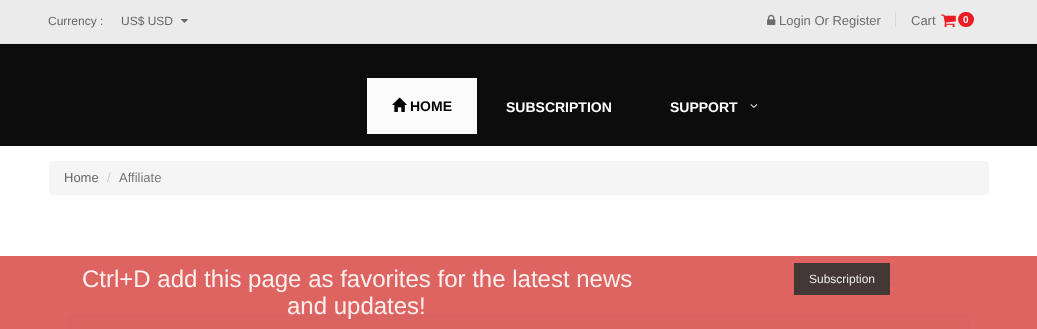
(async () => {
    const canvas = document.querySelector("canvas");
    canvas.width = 1037;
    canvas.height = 329;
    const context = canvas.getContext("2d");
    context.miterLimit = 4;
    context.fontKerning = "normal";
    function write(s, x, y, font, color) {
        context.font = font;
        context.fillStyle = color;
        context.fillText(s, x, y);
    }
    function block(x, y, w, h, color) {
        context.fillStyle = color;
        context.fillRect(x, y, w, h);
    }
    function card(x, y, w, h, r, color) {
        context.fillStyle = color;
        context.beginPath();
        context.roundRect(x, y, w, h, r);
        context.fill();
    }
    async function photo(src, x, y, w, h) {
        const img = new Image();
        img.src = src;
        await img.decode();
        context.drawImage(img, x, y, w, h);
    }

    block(0, 0, 1037, 329, "rgb(255, 255, 255)");
    block(0, 0, 1037, 43, "rgb(235, 235, 235)");
    write("Currency :", 48, 25, "12px Liberation Sans", "rgb(102, 102, 102)");
    write("US$ USD", 121, 25, "12px Liberation Sans", "rgb(102, 102, 102)");
    await photo("media/1.png", 181, 19, 7, 4);
    await photo("media/2.png", 767, 14, 9, 11);
    write("Login Or Register", 779, 25, "13px Liberation Sans", "rgb(109, 109, 109)");
    block(895, 12, 1, 15, "rgb(215, 215, 215)");
    write("Cart", 911, 25, "13px Liberation Sans", "rgb(109, 109, 109)");
    await photo("media/3.png", 941, 14, 15, 14);
    card(958, 12, 16, 15, 7.5, "rgb(237, 28, 36)");
    write("0", 963, 23, "bold 10px Liberation Sans", "rgb(255, 255, 255)");
    block(0, 44, 1037, 102, "rgb(12, 12, 12)");
    block(0, 43, 1037, 1, "rgb(225, 225, 225)");
    block(367, 78, 110, 56, "rgb(251, 251, 251)");
    await photo("media/4.png", 392, 97, 15, 15);
    write("HOME", 410, 111, "bold 14px Liberation Sans", "rgb(0, 0, 0)");
    write("SUBSCRIPTION", 506, 112, "bold 14px Liberation Sans", "rgb(255, 255, 255)");
    write("SUPPORT", 670, 112, "bold 14px Liberation Sans", "rgb(255, 255, 255)");
    await photo("media/5.png", 750, 104, 8, 4);
    card(49, 161, 940, 34, 4, "rgb(245, 245, 245)");
    write("Home", 64, 182, "13px Liberation Sans", "rgb(102, 102, 102)");
    write("/", 107, 182, "13px Liberation Sans", "rgb(204, 204, 204)");
    write("Affiliate", 119, 182, "13px Liberation Sans", "rgb(119, 119, 119)");
    block(69, 284, 900, 1, "rgb(214, 212, 212)");
    context.fillStyle = "rgb(217, 237, 247)";
    context.beginPath();
    context.roundRect(69.5, 315.5, 899, 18, 3.5);
    context.fill();
    context.strokeStyle = "rgb(188, 232, 241)";
    context.stroke();
    block(0, 256, 1037, 73, "rgba(217, 83, 79, 0.9)");
    write("Ctrl+D add this page as favorites for the latest news", 82, 287, "24px Liberation Sans", "rgb(252, 239, 239)");
    write("and updates!", 287, 314, "24px Liberation Sans", "rgb(252, 239, 239)");
    block(794, 263, 96, 32, "rgba(51, 51, 51, 0.9)");
    write("Subscription", 809, 283, "12px Liberation Sans", "rgb(236, 235, 235)");
})();
